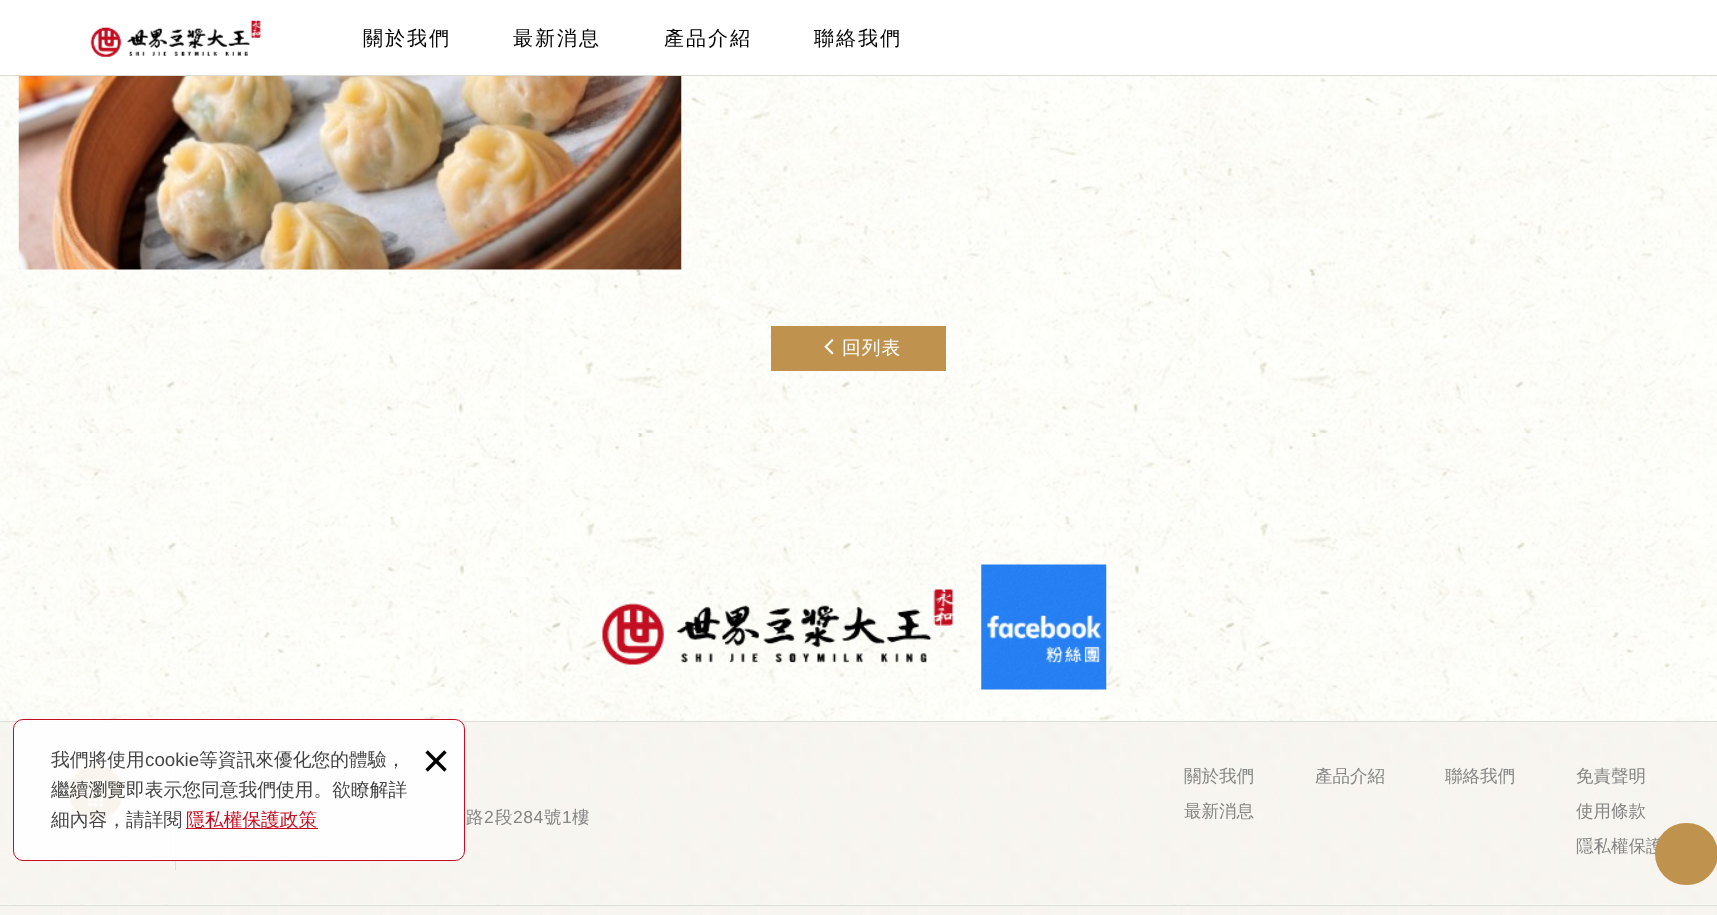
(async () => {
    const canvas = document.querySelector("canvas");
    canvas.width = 1717;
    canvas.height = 915;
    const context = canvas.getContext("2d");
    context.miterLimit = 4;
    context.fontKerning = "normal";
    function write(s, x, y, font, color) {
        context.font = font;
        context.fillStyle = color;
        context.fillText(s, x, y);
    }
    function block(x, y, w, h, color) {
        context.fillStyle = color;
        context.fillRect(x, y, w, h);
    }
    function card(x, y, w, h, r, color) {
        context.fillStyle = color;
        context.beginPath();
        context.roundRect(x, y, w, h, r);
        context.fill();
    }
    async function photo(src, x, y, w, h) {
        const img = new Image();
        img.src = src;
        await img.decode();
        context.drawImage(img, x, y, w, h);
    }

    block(0, 0, 1717, 915, "rgb(255, 255, 255)");
    await photo("media/1.png", 0, 433, 1717, 472);
    block(0, 75, 1717, 1, "rgb(219, 220, 211)");
    await photo("media/2.png", 90, 20, 171, 37);
    context.letterSpacing = "2px";
    write("關於我們", 363, 45, "500 20px WenQuanYi Zen Hei", "rgb(0, 0, 0)");
    write("最新消息", 513, 45, "500 20px WenQuanYi Zen Hei", "rgb(0, 0, 0)");
    write("產品介紹", 664, 45, "500 20px WenQuanYi Zen Hei", "rgb(0, 0, 0)");
    write("聯絡我們", 814, 45, "500 20px WenQuanYi Zen Hei", "rgb(0, 0, 0)");
    await photo("media/8.png", 0, 722, 1717, 183);
    block(0, 721, 1717, 1, "rgb(221, 221, 221)");
    await photo("media/9.png", 68, 765, 55, 55);
    block(175, 765, 1, 105, "rgb(221, 221, 221)");
    context.fillStyle = "rgba(255, 255, 255, 0.9)";
    context.beginPath();
    context.roundRect(13.5, 719.5, 451, 141, 9.5);
    context.fill();
    context.strokeStyle = "rgb(195, 14, 34)";
    context.stroke();
    context.letterSpacing = "0px";
    write("我們將使用", 51, 766, "500 18.75px WenQuanYi Zen Hei", "rgb(68, 68, 68)");
    write("cookie", 145, 766, "18.75px Liberation Sans", "rgb(68, 68, 68)");
    write("等資訊來優化您的體驗，", 199, 766, "500 18.75px WenQuanYi Zen Hei", "rgb(68, 68, 68)");
    write("繼續瀏覽即表示您同意我們使用。欲瞭解詳", 51, 796, "500 18.75px WenQuanYi Zen Hei", "rgb(68, 68, 68)");
    write("細內容，請詳閱", 51, 826, "500 18.75px WenQuanYi Zen Hei", "rgb(68, 68, 68)");
    block(186, 828, 132, 1, "rgb(195, 14, 34)");
    write("隱私權保護政策", 186, 826, "500 18.75px WenQuanYi Zen Hei", "rgb(195, 14, 34)");
    write("×", 422, 777, "48px Liberation Sans", "rgb(0, 0, 0)");
    await photo("media/3.png", 0, 76, 1717, 358);
    await photo("media/4.png", 18, 76, 664, 194);
    block(771, 326, 175, 45, "rgb(191, 146, 77)");
    await photo("media/5.png", 824, 339, 10, 16);
    context.letterSpacing = "1px";
    write("回列表", 842, 354, "500 18.75px WenQuanYi Zen Hei", "rgb(255, 255, 255)");
    await photo("media/6.png", 602, 589, 351, 76);
    await photo("media/7.png", 981, 564, 126, 126);
    context.letterSpacing = "0.5px";
    write("路", 466, 823, "500 17.5px WenQuanYi Zen Hei", "rgb(133, 133, 133)");
    write("2", 484, 823, "17.5px Liberation Sans", "rgb(133, 133, 133)");
    write("段", 495, 823, "500 17.5px WenQuanYi Zen Hei", "rgb(133, 133, 133)");
    write("284", 513, 823, "17.5px Liberation Sans", "rgb(133, 133, 133)");
    write("號", 544, 823, "500 17.5px WenQuanYi Zen Hei", "rgb(133, 133, 133)");
    write("1", 562, 823, "17.5px Liberation Sans", "rgb(133, 133, 133)");
    write("樓", 572, 823, "500 17.5px WenQuanYi Zen Hei", "rgb(133, 133, 133)");
    context.letterSpacing = "0px";
    write("關於我們", 1184, 782, "500 17.5px WenQuanYi Zen Hei", "rgb(133, 133, 133)");
    write("最新消息", 1184, 817, "500 17.5px WenQuanYi Zen Hei", "rgb(133, 133, 133)");
    write("產品介紹", 1315, 782, "500 17.5px WenQuanYi Zen Hei", "rgb(133, 133, 133)");
    write("聯絡我們", 1445, 782, "500 17.5px WenQuanYi Zen Hei", "rgb(133, 133, 133)");
    write("免責聲明", 1576, 782, "500 17.5px WenQuanYi Zen Hei", "rgb(133, 133, 133)");
    write("使用條款", 1576, 817, "500 17.5px WenQuanYi Zen Hei", "rgb(133, 133, 133)");
    write("隱私權保護", 1576, 852, "500 17.5px WenQuanYi Zen Hei", "rgb(133, 133, 133)");
    await photo("media/10.png", 0, 906, 1717, 9);
    block(0, 905, 1717, 1, "rgb(221, 221, 221)");
    card(1655, 823, 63, 62, 31, "rgb(191, 146, 77)");
})();
